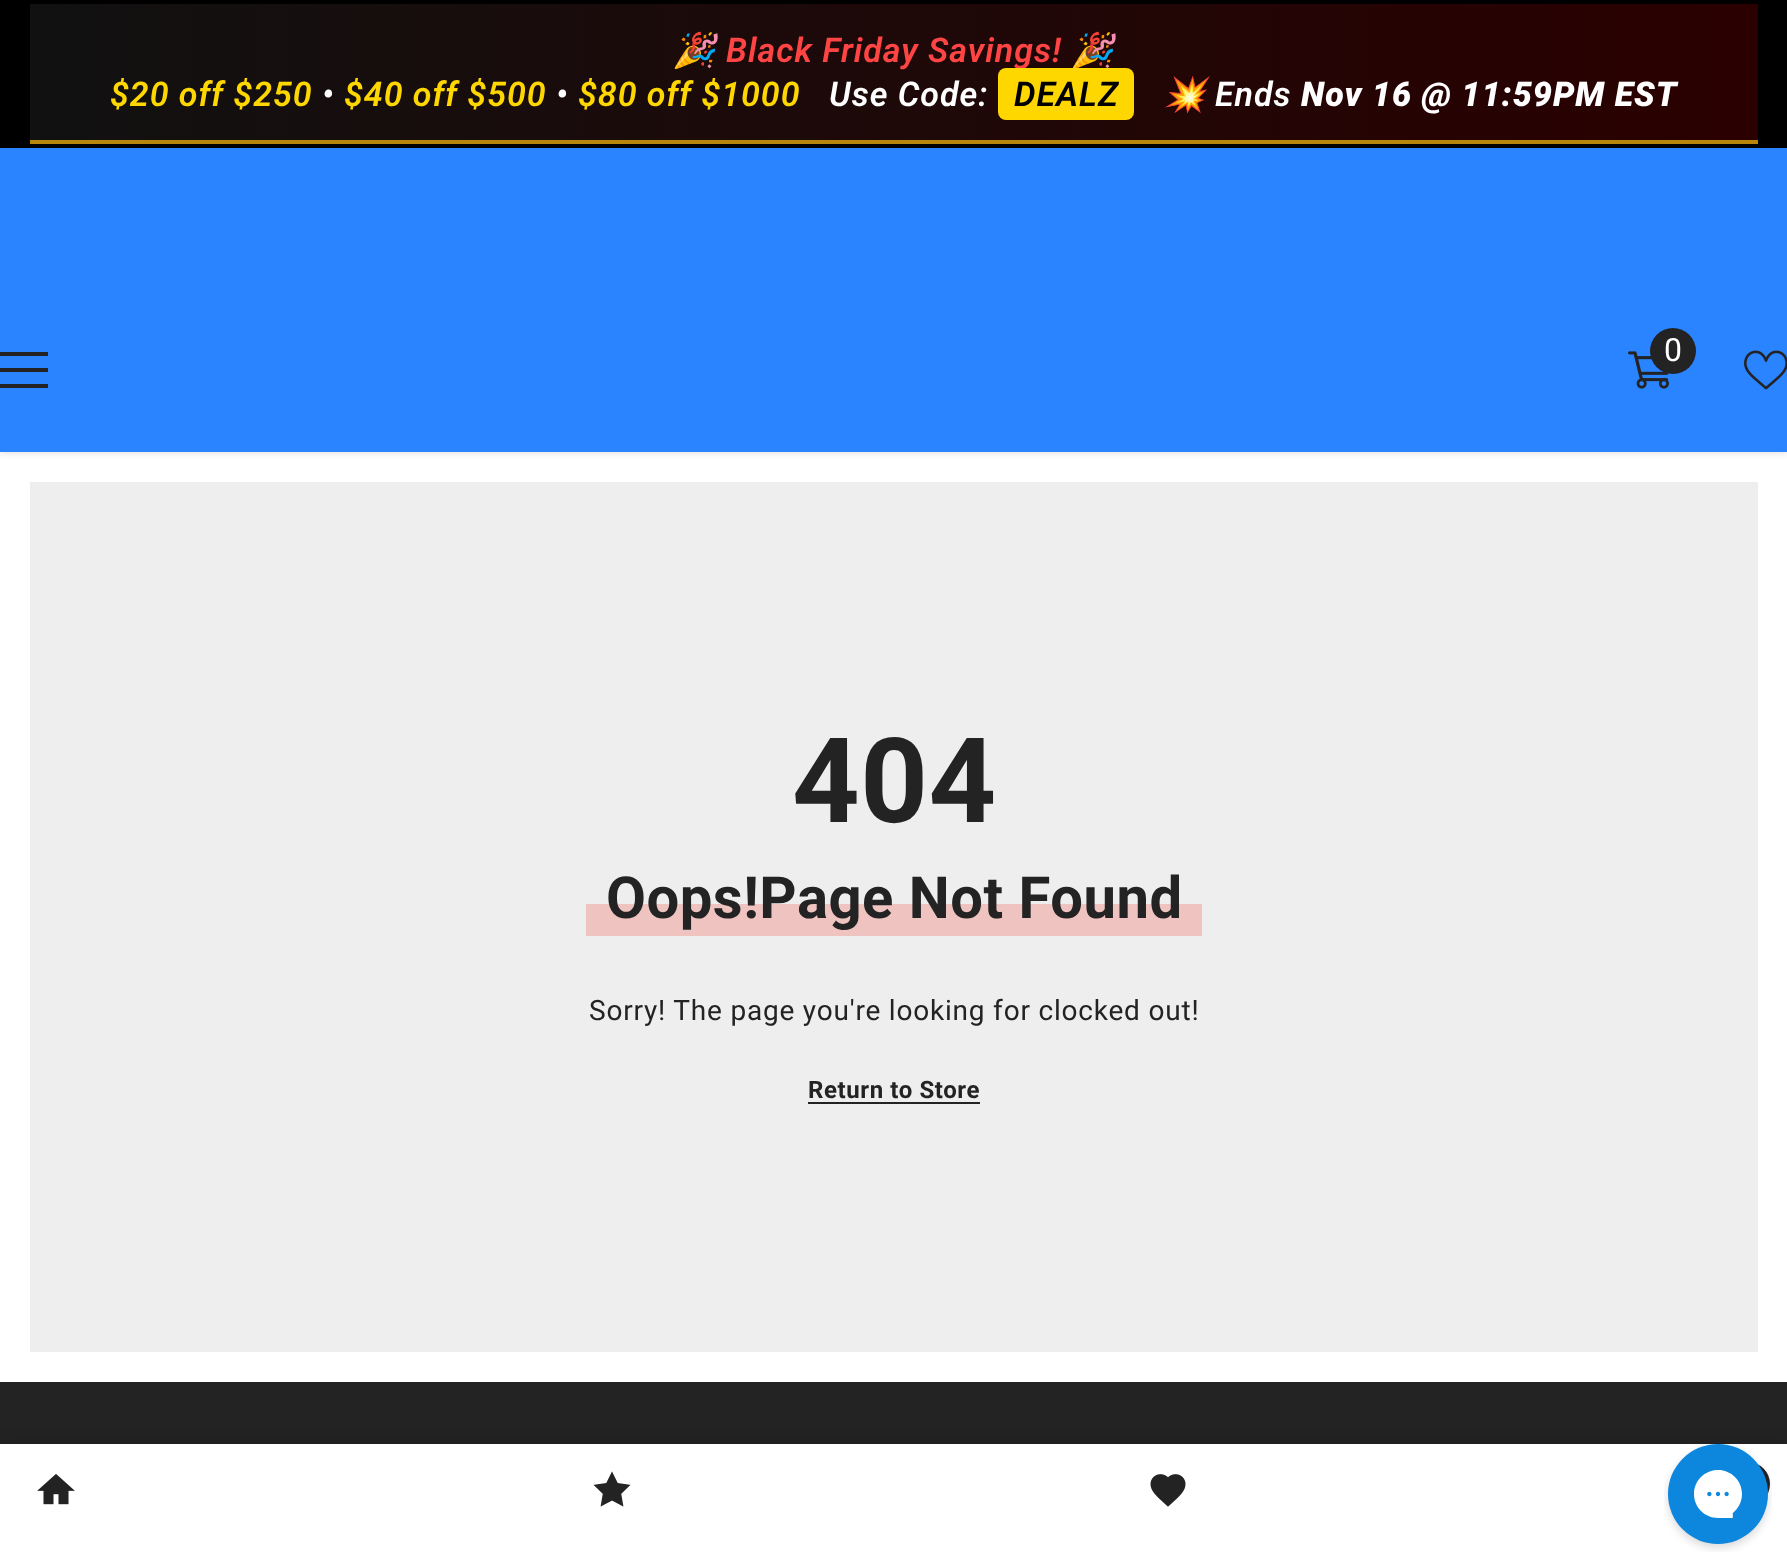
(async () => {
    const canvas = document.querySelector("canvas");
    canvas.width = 1787;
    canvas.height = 1567;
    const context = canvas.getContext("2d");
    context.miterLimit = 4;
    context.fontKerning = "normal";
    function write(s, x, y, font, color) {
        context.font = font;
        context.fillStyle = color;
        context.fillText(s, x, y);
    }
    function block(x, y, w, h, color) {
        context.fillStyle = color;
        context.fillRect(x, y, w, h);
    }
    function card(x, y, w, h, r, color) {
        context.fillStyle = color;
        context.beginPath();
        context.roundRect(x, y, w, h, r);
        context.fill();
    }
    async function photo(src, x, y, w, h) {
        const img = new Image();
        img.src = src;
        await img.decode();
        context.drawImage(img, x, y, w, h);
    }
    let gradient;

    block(0, 0, 1787, 1567, "rgb(255, 255, 255)");
    block(0, 0, 1787, 148, "rgb(0, 0, 0)");
    gradient = context.createLinearGradient(30, 72, 1758, 72);
    gradient.addColorStop(0, "rgb(17, 17, 17)");
    gradient.addColorStop(1, "rgb(43, 0, 0)");
    context.fillStyle = gradient;
    context.fillRect(30, 4, 1728, 136);
    block(30, 140, 1728, 4, "rgb(184, 134, 11)");
    context.letterSpacing = "1px";
    write("🎉", 673, 62, "italic 34px Noto Color Emoji", "rgb(255, 255, 255)");
    write("Black Friday Savings!", 726, 62, "italic 600 34px Roboto", "rgb(255, 68, 68)");
    write("🎉", 1071, 62, "italic 34px Noto Color Emoji", "rgb(255, 255, 255)");
    write("$20 off $250", 110, 106, "italic 600 34px Roboto", "rgb(255, 215, 0)");
    write("•", 322, 106, "italic 600 34px Roboto", "rgb(255, 255, 255)");
    write("$40 off $500", 344, 106, "italic 600 34px Roboto", "rgb(255, 215, 0)");
    write("•", 556, 106, "italic 600 34px Roboto", "rgb(255, 255, 255)");
    write("$80 off $1000", 578, 106, "italic 600 34px Roboto", "rgb(255, 215, 0)");
    write("Use Code:", 829, 106, "italic 600 34px Roboto", "rgb(255, 255, 255)");
    card(998, 68, 136, 52, 8, "rgb(255, 215, 0)");
    write("DEALZ", 1014, 106, "italic 600 34px Roboto", "rgb(0, 0, 0)");
    write("💥", 1163, 106, "italic 34px Noto Color Emoji", "rgb(255, 255, 255)");
    write("Ends", 1215, 106, "italic 600 34px Roboto", "rgb(255, 255, 255)");
    write("Nov 16 @ 11:59PM EST", 1301, 106, "italic 900 34px Roboto", "rgb(255, 255, 255)");
    context.fillStyle = "rgba(0, 0, 0, 0.1)";
    context.filter = "blur(3px)";
    context.beginPath();
    context.rect(0, 150, 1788, 304);
    context.fill();
    context.filter = "none";
    block(0, 148, 1787, 304, "rgb(43, 132, 255)");
    block(0, 368, 48, 4, "rgb(35, 35, 35)");
    block(0, 352, 48, 4, "rgb(35, 35, 35)");
    block(0, 384, 48, 4, "rgb(35, 35, 35)");
    await photo("media/1.png", 1628, 351, 41, 38);
    context.beginPath();
    context.arc(1673, 351, 23, 0, Math.PI * 2);
    context.fill();
    context.letterSpacing = "0px";
    write("0", 1664, 361, "32px Roboto", "rgb(255, 255, 255)");
    await photo("media/2.png", 1744, 350, 43, 40);
    block(30, 482, 1728, 870, "rgb(238, 238, 238)");
    context.letterSpacing = "0.5px";
    write("404", 792, 822, "bold 118px Roboto", "rgb(35, 35, 35)");
    block(586, 904, 616, 32, "rgb(239, 195, 192)");
    write("Oops!Page Not Found", 606, 918, "bold 58px Roboto", "rgb(35, 35, 35)");
    context.letterSpacing = "0.8px";
    write("Sorry! The page you're looking for clocked out!", 589, 1020, "28px Roboto", "rgb(35, 35, 35)");
    context.letterSpacing = "0.6px";
    write("Return to Store", 808, 1098, "bold 24px Roboto", "rgb(35, 35, 35)");
    block(808, 1102, 172, 2, "rgb(35, 35, 35)");
    block(0, 1382, 1787, 62, "rgb(35, 35, 35)");
    context.fillStyle = "rgba(0, 0, 0, 0.12)";
    context.filter = "blur(9px)";
    context.beginPath();
    context.rect(0, 1444, 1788, 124);
    context.fill();
    context.filter = "none";
    block(0, 1444, 1787, 123, "rgb(255, 255, 255)");
    await photo("media/3.png", 37, 1474, 38, 31);
    await photo("media/4.png", 593, 1471, 38, 36);
    await photo("media/5.png", 1150, 1474, 36, 33);
    context.fillStyle = "rgb(35, 35, 35)";
    context.beginPath();
    context.arc(1748, 1484, 22, 0, Math.PI * 2);
    context.fill();
    await photo("media/6.png", 1664, 1444, 108, 108);
})();
